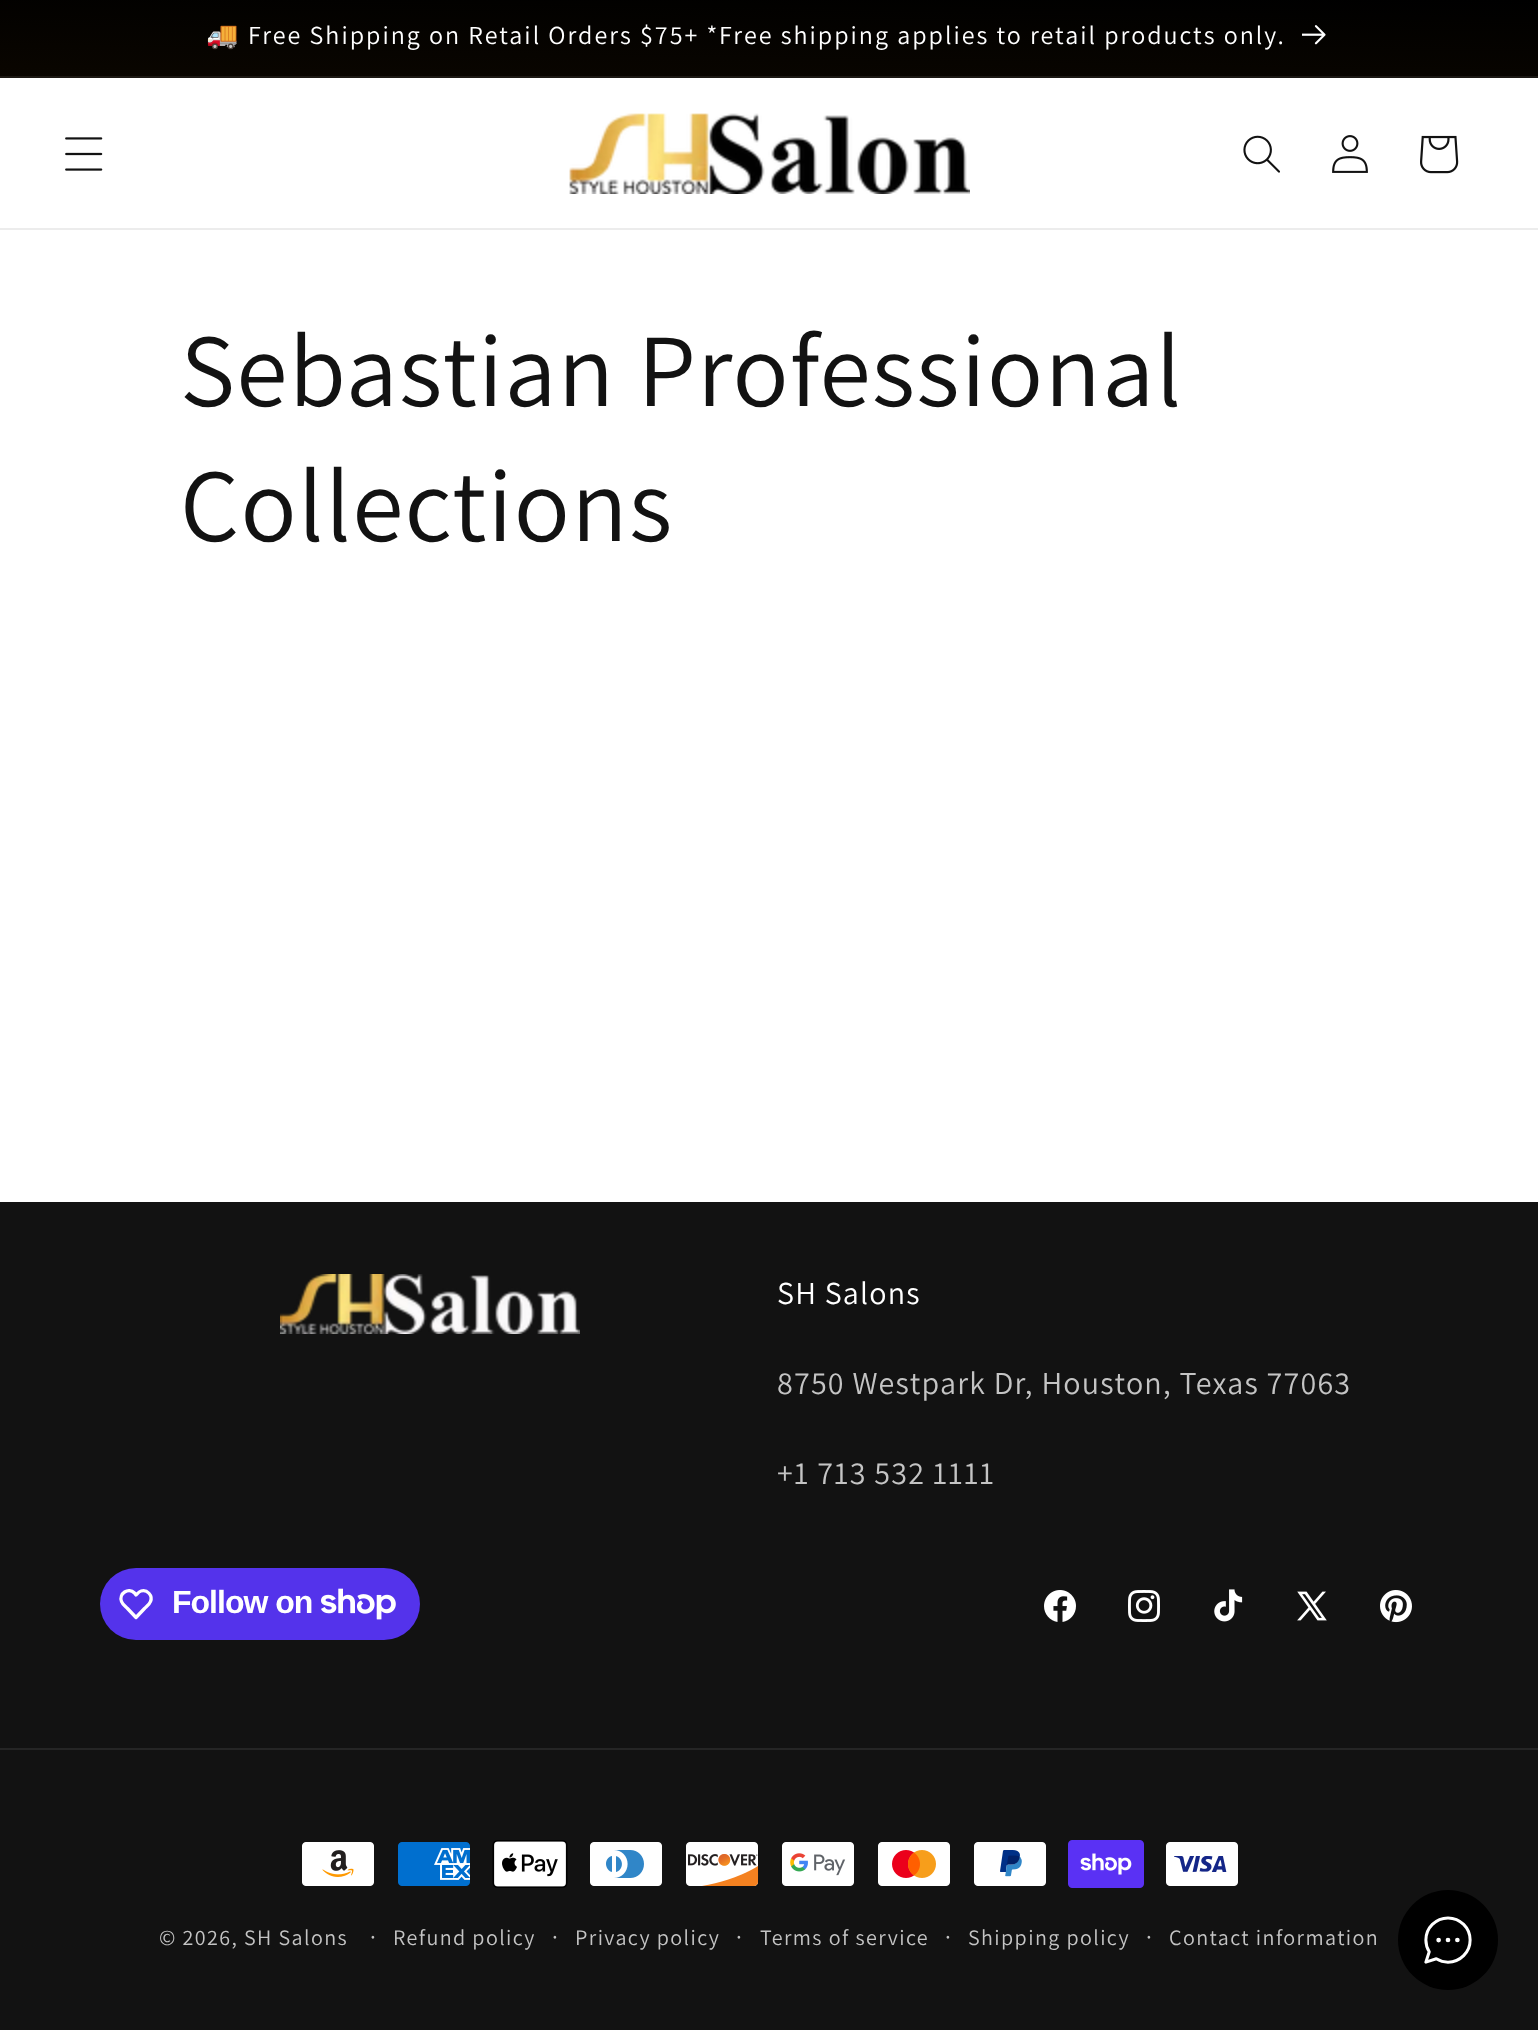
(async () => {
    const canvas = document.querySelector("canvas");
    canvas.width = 1538;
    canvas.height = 2030;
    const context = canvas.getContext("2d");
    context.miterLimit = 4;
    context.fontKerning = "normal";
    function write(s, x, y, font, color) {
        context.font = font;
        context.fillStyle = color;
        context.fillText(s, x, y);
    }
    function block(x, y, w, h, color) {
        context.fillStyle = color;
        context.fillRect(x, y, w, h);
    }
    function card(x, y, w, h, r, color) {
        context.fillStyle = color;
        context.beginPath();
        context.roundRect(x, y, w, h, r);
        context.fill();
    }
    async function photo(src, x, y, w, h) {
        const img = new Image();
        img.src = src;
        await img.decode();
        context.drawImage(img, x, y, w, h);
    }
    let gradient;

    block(0, 0, 1538, 2030, "rgb(255, 255, 255)");
    gradient = context.createLinearGradient(787, -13, 751, 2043);
    gradient.addColorStop(0, "rgb(0, 0, 0)");
    gradient.addColorStop(1, "rgb(199, 112, 2)");
    context.fillStyle = gradient;
    context.fillRect(0, 0, 1538, 76);
    gradient = context.createLinearGradient(787, -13, 751, 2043);
    gradient.addColorStop(0, "rgb(20, 20, 20)");
    gradient.addColorStop(1, "rgb(203, 123, 22)");
    context.fillStyle = gradient;
    context.fillRect(0, 76, 1538, 2);
    context.letterSpacing = "2px";
    write("🚚", 206, 44, "26px Noto Color Emoji", "rgb(255, 255, 255)");
    write("Free Shipping on Retail Orders $75+ *Free shipping applies to retail products only.", 248, 44, "26px Assistant", "rgb(255, 255, 255)");
    await photo("media/1.png", 1302, 25, 24, 20);
    block(0, 228, 1538, 2, "rgb(236, 236, 236)");
    await photo("media/2.png", 65, 137, 38, 34);
    await photo("media/3.png", 569, 113, 401, 81);
    await photo("media/4.png", 1243, 135, 37, 38);
    await photo("media/5.png", 1332, 135, 36, 38);
    await photo("media/6.png", 1420, 135, 39, 39);
    context.letterSpacing = "1.2px";
    write("Sebastian Professional", 180, 406, "104px Assistant", "rgb(18, 18, 18)");
    write("Collections", 180, 541, "104px Assistant", "rgb(18, 18, 18)");
    block(0, 1202, 1538, 828, "rgb(18, 18, 18)");
    await photo("media/7.png", 280, 1274, 300, 60);
    write("SH Salons", 777, 1304, "32px Assistant", "rgb(255, 255, 255)");
    write("8750 Westpark Dr, Houston, Texas 77063", 777, 1394, "32px Assistant", "rgb(196, 196, 196)");
    write("+1 713 532 1111", 777, 1484, "32px Assistant", "rgb(196, 196, 196)");
    card(100, 1568, 320, 72, 36, "rgb(84, 51, 235)");
    context.beginPath();
    context.moveTo(134.5, 1593);
    context.lineTo(136, 1595);
    context.bezierCurveTo(137.5, 1593.5, 139, 1591.5, 141, 1591);
    context.bezierCurveTo(147, 1589, 153, 1595.5, 150.5, 1601.5);
    context.bezierCurveTo(149.5, 1604.5, 146.5, 1606.5, 144.5, 1608.5);
    context.lineTo(136, 1617.5);
    context.lineTo(127.5, 1608.5);
    context.bezierCurveTo(125.5, 1606.5, 122.5, 1604.5, 121.5, 1601.5);
    context.bezierCurveTo(118.5, 1593.5, 128.5, 1587, 134.5, 1593);
    context.closePath();
    context.strokeStyle = "rgb(255, 255, 255)";
    context.lineWidth = 3.3;
    context.lineJoin = "round";
    context.stroke();
    context.letterSpacing = "-1px";
    write("Follow on", 172, 1613, "bold 32px Liberation Sans", "rgb(255, 255, 255)");
    await photo("media/8.png", 321, 1588, 75, 32);
    await photo("media/9.png", 1044, 1590, 32, 32);
    await photo("media/10.png", 1128, 1590, 32, 32);
    await photo("media/11.png", 1214, 1589, 29, 33);
    await photo("media/12.png", 1297, 1591, 30, 30);
    await photo("media/13.png", 1380, 1590, 32, 33);
    block(0, 1748, 1538, 2, "rgb(37, 37, 37)");
    await photo("media/14.png", 302, 1842, 72, 44);
    await photo("media/15.png", 398, 1842, 72, 44);
    await photo("media/16.png", 492, 1840, 76, 48);
    await photo("media/17.png", 590, 1842, 72, 44);
    await photo("media/18.png", 686, 1842, 73, 44);
    await photo("media/19.png", 782, 1842, 72, 44);
    await photo("media/20.png", 878, 1842, 72, 44);
    await photo("media/21.png", 974, 1842, 72, 44);
    await photo("media/22.png", 1068, 1840, 76, 48);
    await photo("media/23.png", 1166, 1842, 72, 44);
    context.letterSpacing = "1.4px";
    write("© 2026, SH Salons", 159, 1945, "22px Assistant", "rgb(196, 196, 196)");
    write("·", 370, 1945, "24px Assistant", "rgb(196, 196, 196)");
    write("Refund policy", 393, 1945, "22px Assistant", "rgb(196, 196, 196)");
    write("·", 552, 1945, "24px Assistant", "rgb(196, 196, 196)");
    write("Privacy policy", 575, 1945, "22px Assistant", "rgb(196, 196, 196)");
    write("·", 736, 1945, "24px Assistant", "rgb(196, 196, 196)");
    write("Terms of service", 760, 1945, "22px Assistant", "rgb(196, 196, 196)");
    write("·", 945, 1945, "24px Assistant", "rgb(196, 196, 196)");
    write("Shipping policy", 968, 1945, "22px Assistant", "rgb(196, 196, 196)");
    write("·", 1146, 1945, "24px Assistant", "rgb(196, 196, 196)");
    write("Contact information", 1169, 1945, "22px Assistant", "rgb(196, 196, 196)");
    context.fillStyle = "rgb(0, 0, 0)";
    context.beginPath();
    context.arc(1448, 1940, 50, 0, Math.PI * 2);
    context.fill();
    await photo("media/24.png", 1424, 1916, 48, 48);
})();
